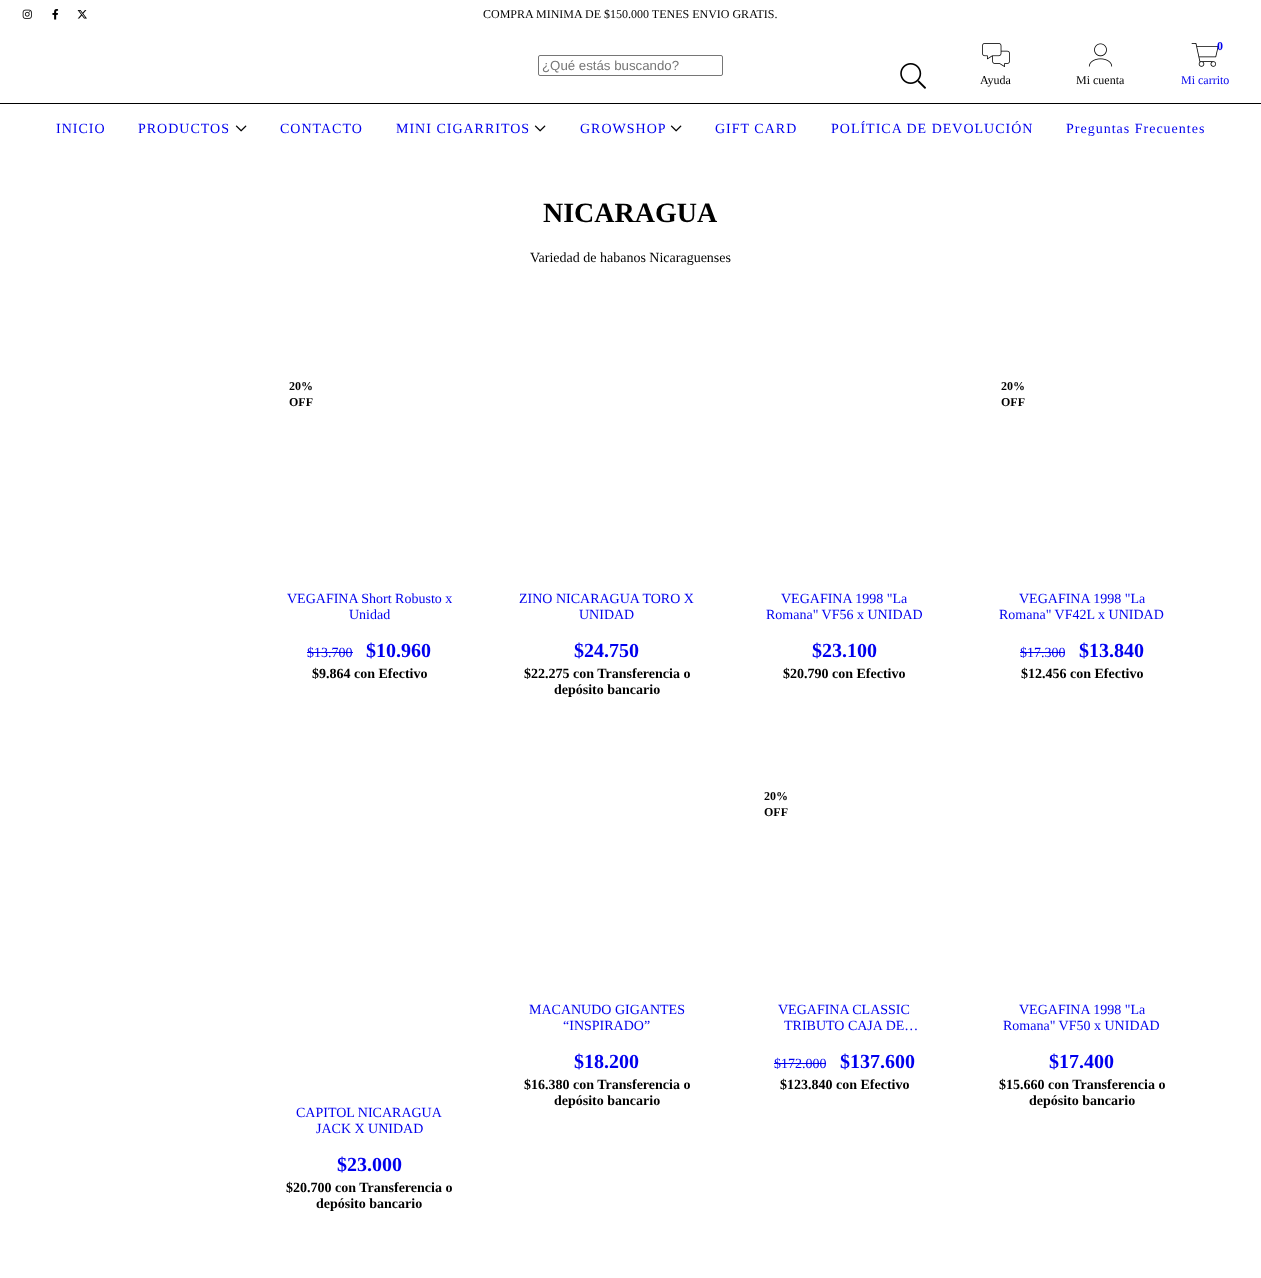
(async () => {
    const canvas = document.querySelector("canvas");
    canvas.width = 1261;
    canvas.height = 1278;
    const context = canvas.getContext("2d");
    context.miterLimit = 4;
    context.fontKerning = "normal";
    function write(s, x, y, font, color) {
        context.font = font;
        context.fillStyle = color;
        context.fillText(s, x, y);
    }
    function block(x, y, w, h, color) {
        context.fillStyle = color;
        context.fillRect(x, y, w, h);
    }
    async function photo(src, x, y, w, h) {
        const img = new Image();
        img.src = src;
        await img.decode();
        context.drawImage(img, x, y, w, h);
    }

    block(0, 0, 1261, 1278, "rgb(255, 255, 255)");
    await photo("media/1.png", 22, 9, 10, 10);
    await photo("media/2.png", 52, 9, 7, 11);
    await photo("media/3.png", 77, 10, 10, 9);
    write("COMPRA MINIMA DE $150.000 TENES ENVIO GRATIS.", 483, 18, "12px Liberation Serif", "rgb(0, 0, 0)");
    context.beginPath();
    context.roundRect(538.5, 55.5, 184, 20, 1.5);
    context.strokeStyle = "rgb(118, 118, 118)";
    context.stroke();
    write("¿Qué estás buscando?", 542, 70, "13.25px Liberation Sans", "rgb(117, 117, 117)");
    await photo("media/4.png", 900, 63, 26, 26);
    await photo("media/5.png", 982, 43, 28, 24);
    write("Ayuda", 980, 84, "12px Liberation Serif", "rgb(0, 0, 0)");
    await photo("media/6.png", 1088, 43, 25, 24);
    write("Mi cuenta", 1076, 84, "12px Liberation Serif", "rgb(0, 0, 0)");
    await photo("media/7.png", 1191, 43, 28, 24);
    write("0", 1217, 50, "bold 12px Liberation Serif", "rgb(0, 0, 238)");
    write("Mi carrito", 1181, 84, "12px Liberation Serif", "rgb(0, 0, 238)");
    block(0, 103, 1261, 1, "rgb(0, 0, 0)");
    context.letterSpacing = "1px";
    write("INICIO", 56, 133, "14px Liberation Serif", "rgb(0, 0, 238)");
    write("PRODUCTOS", 138, 133, "14px Liberation Serif", "rgb(0, 0, 238)");
    await photo("media/8.png", 235, 125, 12, 7);
    write("CONTACTO", 280, 133, "14px Liberation Serif", "rgb(0, 0, 238)");
    write("MINI CIGARRITOS", 396, 133, "14px Liberation Serif", "rgb(0, 0, 238)");
    await photo("media/8.png", 534, 125, 12, 7);
    write("GROWSHOP", 580, 133, "14px Liberation Serif", "rgb(0, 0, 238)");
    await photo("media/8.png", 670, 125, 12, 7);
    write("GIFT CARD", 715, 133, "14px Liberation Serif", "rgb(0, 0, 238)");
    write("POLÍTICA DE DEVOLUCIÓN", 831, 133, "14px Liberation Serif", "rgb(0, 0, 238)");
    write("Preguntas Frecuentes", 1066, 133, "14px Liberation Serif", "rgb(0, 0, 238)");
    context.letterSpacing = "0px";
    write("NICARAGUA", 543, 222, "bold 28px Liberation Serif", "rgb(0, 0, 0)");
    write("Variedad de habanos Nicaraguenses", 530, 262, "14px Liberation Serif", "rgb(0, 0, 0)");
    write("20%", 289, 390, "bold 12px Liberation Serif", "rgb(0, 0, 0)");
    write("OFF", 289, 406, "bold 12px Liberation Serif", "rgb(0, 0, 0)");
    write("VEGAFINA Short Robusto x", 287, 603, "14px Liberation Serif", "rgb(0, 0, 238)");
    write("Unidad", 349, 619, "14px Liberation Serif", "rgb(0, 0, 238)");
    write("$13.700", 307, 657, "14px Liberation Serif", "rgb(0, 0, 238)");
    block(307, 652, 46, 1, "rgb(0, 0, 238)");
    write("$10.960", 366, 657, "bold 20px Liberation Serif", "rgb(0, 0, 238)");
    write("$9.864 con Efectivo", 312, 678, "bold 14px Liberation Serif", "rgb(0, 0, 0)");
    write("ZINO NICARAGUA TORO X", 519, 603, "14px Liberation Serif", "rgb(0, 0, 238)");
    write("UNIDAD", 579, 619, "14px Liberation Serif", "rgb(0, 0, 238)");
    write("$24.750", 574, 657, "bold 20px Liberation Serif", "rgb(0, 0, 238)");
    write("$22.275 con Transferencia o", 524, 678, "bold 14px Liberation Serif", "rgb(0, 0, 0)");
    write("depósito bancario", 554, 694, "bold 14px Liberation Serif", "rgb(0, 0, 0)");
    write("VEGAFINA 1998 \"La", 781, 603, "14px Liberation Serif", "rgb(0, 0, 238)");
    write("Romana\" VF56 x UNIDAD", 766, 619, "14px Liberation Serif", "rgb(0, 0, 238)");
    write("$23.100", 812, 657, "bold 20px Liberation Serif", "rgb(0, 0, 238)");
    write("$20.790 con Efectivo", 783, 678, "bold 14px Liberation Serif", "rgb(0, 0, 0)");
    write("20%", 1001, 390, "bold 12px Liberation Serif", "rgb(0, 0, 0)");
    write("OFF", 1001, 406, "bold 12px Liberation Serif", "rgb(0, 0, 0)");
    write("VEGAFINA 1998 \"La", 1019, 603, "14px Liberation Serif", "rgb(0, 0, 238)");
    write("Romana\" VF42L x UNIDAD", 999, 619, "14px Liberation Serif", "rgb(0, 0, 238)");
    write("$17.300", 1020, 657, "14px Liberation Serif", "rgb(0, 0, 238)");
    block(1020, 652, 45, 1, "rgb(0, 0, 238)");
    write("$13.840", 1079, 657, "bold 20px Liberation Serif", "rgb(0, 0, 238)");
    write("$12.456 con Efectivo", 1021, 678, "bold 14px Liberation Serif", "rgb(0, 0, 0)");
    write("MACANUDO GIGANTES", 529, 1014, "14px Liberation Serif", "rgb(0, 0, 238)");
    write("“INSPIRADO”", 563, 1030, "14px Liberation Serif", "rgb(0, 0, 238)");
    write("$18.200", 574, 1068, "bold 20px Liberation Serif", "rgb(0, 0, 238)");
    write("$16.380 con Transferencia o", 524, 1089, "bold 14px Liberation Serif", "rgb(0, 0, 0)");
    write("depósito bancario", 554, 1105, "bold 14px Liberation Serif", "rgb(0, 0, 0)");
    write("20%", 764, 800, "bold 12px Liberation Serif", "rgb(0, 0, 0)");
    write("OFF", 764, 816, "bold 12px Liberation Serif", "rgb(0, 0, 0)");
    write("VEGAFINA CLASSIC", 778, 1014, "14px Liberation Serif", "rgb(0, 0, 238)");
    write("TRIBUTO CAJA DE…", 784, 1030, "14px Liberation Serif", "rgb(0, 0, 238)");
    write("$172.000", 774, 1068, "14px Liberation Serif", "rgb(0, 0, 238)");
    block(774, 1063, 52, 1, "rgb(0, 0, 238)");
    write("$137.600", 840, 1068, "bold 20px Liberation Serif", "rgb(0, 0, 238)");
    write("$123.840 con Efectivo", 780, 1089, "bold 14px Liberation Serif", "rgb(0, 0, 0)");
    write("VEGAFINA 1998 \"La", 1019, 1014, "14px Liberation Serif", "rgb(0, 0, 238)");
    write("Romana\" VF50 x UNIDAD", 1003, 1030, "14px Liberation Serif", "rgb(0, 0, 238)");
    write("$17.400", 1049, 1068, "bold 20px Liberation Serif", "rgb(0, 0, 238)");
    write("$15.660 con Transferencia o", 999, 1089, "bold 14px Liberation Serif", "rgb(0, 0, 0)");
    write("depósito bancario", 1029, 1105, "bold 14px Liberation Serif", "rgb(0, 0, 0)");
    write("CAPITOL NICARAGUA", 296, 1117, "14px Liberation Serif", "rgb(0, 0, 238)");
    write("JACK X UNIDAD", 316, 1133, "14px Liberation Serif", "rgb(0, 0, 238)");
    write("$23.000", 337, 1171, "bold 20px Liberation Serif", "rgb(0, 0, 238)");
    write("$20.700 con Transferencia o", 286, 1192, "bold 14px Liberation Serif", "rgb(0, 0, 0)");
    write("depósito bancario", 316, 1208, "bold 14px Liberation Serif", "rgb(0, 0, 0)");
})();
